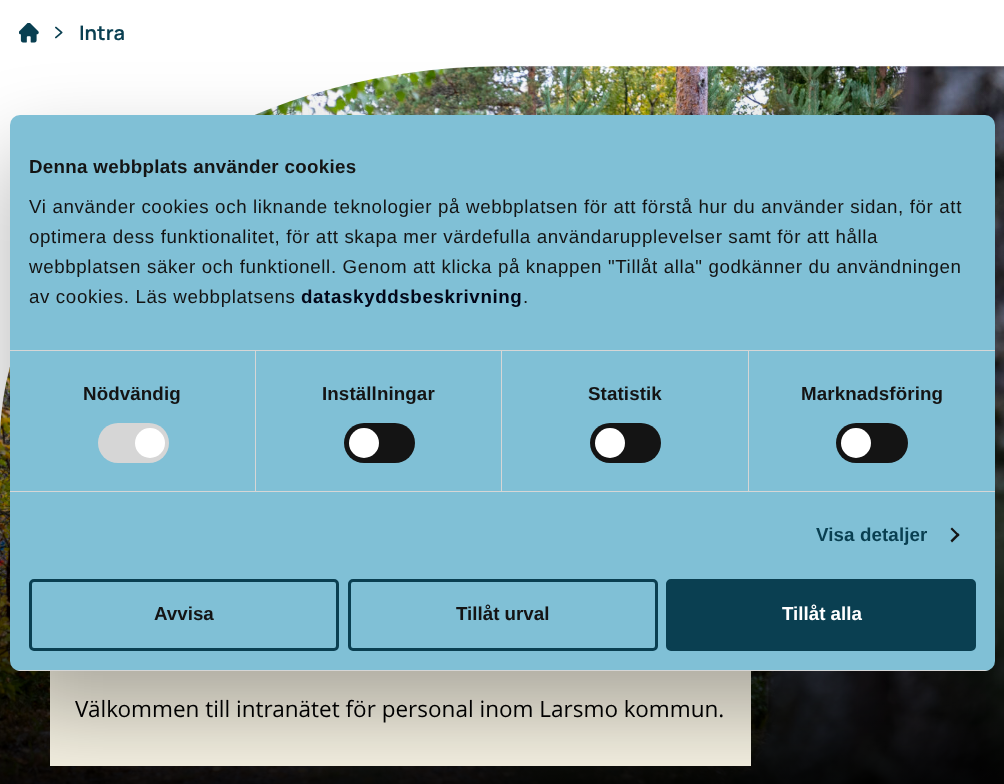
(async () => {
    const canvas = document.querySelector("canvas");
    canvas.width = 1004;
    canvas.height = 784;
    const context = canvas.getContext("2d");
    context.miterLimit = 4;
    context.fontKerning = "normal";
    function write(s, x, y, font, color) {
        context.font = font;
        context.fillStyle = color;
        context.fillText(s, x, y);
    }
    function block(x, y, w, h, color) {
        context.fillStyle = color;
        context.fillRect(x, y, w, h);
    }
    function card(x, y, w, h, r, color) {
        context.fillStyle = color;
        context.beginPath();
        context.roundRect(x, y, w, h, r);
        context.fill();
    }
    async function photo(src, x, y, w, h) {
        const img = new Image();
        img.src = src;
        await img.decode();
        context.drawImage(img, x, y, w, h);
    }
    let gradient;

    block(0, 0, 1004, 784, "rgb(255, 255, 255)");
    await photo("media/1.png", 19, 23, 20, 20);
    await photo("media/2.png", 55, 26, 8, 13);
    write("Intra", 79, 40, "bold 20px Manrope", "rgb(9, 63, 81)");
    await photo("media/3.png", 0, 66, 1004, 718);
    gradient = context.createLinearGradient(502, 66, 503, 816);
    gradient.addColorStop(0, "rgba(0, 0, 0, 0)");
    gradient.addColorStop(0.54, "rgba(0, 0, 0, 0.21)");
    gradient.addColorStop(1, "rgb(0, 0, 0)");
    context.fillStyle = gradient;
    context.beginPath();
    context.moveTo(502, 66);
    context.lineTo(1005, 66);
    context.lineTo(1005, 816);
    context.lineTo(0, 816);
    context.lineTo(0, 441);
    context.bezierCurveTo(0, 234, 225, 66, 502, 66);
    context.closePath();
    context.fill();
    block(50, 671, 701, 95, "rgb(244, 240, 225)");
    context.fillStyle = "rgba(0, 0, 0, 0.3)";
    context.filter = "blur(42.5px)";
    context.beginPath();
    context.roundRect(10, 155, 985, 556, 10);
    context.fill();
    context.filter = "none";
    card(10, 115, 985, 556, 10, "rgb(128, 192, 214)");
    block(10, 350, 985, 1, "rgb(214, 214, 214)");
    context.letterSpacing = "0.3px";
    write("Denna webbplats använder cookies", 29, 173, "bold 18.75px Liberation Sans", "rgb(20, 20, 20)");
    context.letterSpacing = "0.62px";
    write("Vi använder cookies och liknande teknologier på webbplatsen för att förstå hur du använder sidan, för att", 29, 213, "18.75px Liberation Sans", "rgb(20, 20, 20)");
    write("optimera dess funktionalitet, för att skapa mer värdefulla användarupplevelser samt för att hålla", 29, 243, "18.75px Liberation Sans", "rgb(20, 20, 20)");
    write("webbplatsen säker och funktionell. Genom att klicka på knappen \"Tillåt alla\" godkänner du användningen", 29, 273, "18.75px Liberation Sans", "rgb(20, 20, 20)");
    write("av cookies. Läs webbplatsens", 29, 303, "18.75px Liberation Sans", "rgb(20, 20, 20)");
    write("dataskyddsbeskrivning", 301, 303, "bold 18.75px Liberation Sans", "rgb(2, 6, 24)");
    write(".", 523, 303, "18.75px Liberation Sans", "rgb(20, 20, 20)");
    block(10, 491, 985, 1, "rgb(214, 214, 214)");
    block(255, 351, 1, 140, "rgb(214, 214, 214)");
    context.letterSpacing = "0.1px";
    write("Nödvändig", 83, 400, "bold 18.75px Liberation Sans", "rgb(20, 20, 20)");
    card(98, 423, 71, 40, 20, "rgb(214, 214, 214)");
    context.fillStyle = "rgb(255, 255, 255)";
    context.beginPath();
    context.arc(150, 443, 15, 0, Math.PI * 2);
    context.fill();
    block(501, 351, 1, 140, "rgb(214, 214, 214)");
    write("Inställningar", 322, 400, "bold 18.75px Liberation Sans", "rgb(20, 20, 20)");
    card(344, 423, 71, 40, 20, "rgb(20, 20, 20)");
    context.fillStyle = "rgb(255, 255, 255)";
    context.beginPath();
    context.arc(364, 443, 15, 0, Math.PI * 2);
    context.fill();
    block(748, 351, 1, 140, "rgb(214, 214, 214)");
    write("Statistik", 588, 400, "bold 18.75px Liberation Sans", "rgb(20, 20, 20)");
    card(590, 423, 71, 40, 20, "rgb(20, 20, 20)");
    context.fillStyle = "rgb(255, 255, 255)";
    context.beginPath();
    context.arc(610, 443, 15, 0, Math.PI * 2);
    context.fill();
    write("Marknadsföring", 801, 400, "bold 18.75px Liberation Sans", "rgb(20, 20, 20)");
    card(836, 423, 72, 40, 20, "rgb(20, 20, 20)");
    context.fillStyle = "rgb(255, 255, 255)";
    context.beginPath();
    context.arc(856, 443, 15, 0, Math.PI * 2);
    context.fill();
    write("Visa detaljer", 816, 541, "bold 18.75px Liberation Sans", "rgb(9, 63, 81)");
    context.fillStyle = "rgb(20, 20, 20)";
    context.beginPath();
    context.moveTo(952, 527.5);
    context.lineTo(959.5, 535);
    context.lineTo(958, 536.5);
    context.lineTo(950.5, 529);
    context.closePath();
    context.fill();
    context.beginPath();
    context.moveTo(958, 533);
    context.lineTo(959.5, 535);
    context.lineTo(952, 542.5);
    context.lineTo(950.5, 540.5);
    context.closePath();
    context.fill();
    context.save();
    context.beginPath();
    context.roundRect(10, 115, 985, 556, 10);
    context.clip();
    block(10, 670, 985, 1, "rgb(214, 214, 214)");
    context.restore();
    context.beginPath();
    context.roundRect(30.5, 580.5, 307, 69, 3.5);
    context.strokeStyle = "rgb(10, 63, 81)";
    context.lineWidth = 3;
    context.stroke();
    context.letterSpacing = "0px";
    write("Avvisa", 154, 620, "bold 18.75px Liberation Sans", "rgb(20, 20, 20)");
    context.beginPath();
    context.roundRect(349.5, 580.5, 307, 69, 3.5);
    context.stroke();
    write("Tillåt urval", 456, 620, "bold 18.75px Liberation Sans", "rgb(20, 20, 20)");
    context.fillStyle = "rgb(10, 63, 81)";
    context.beginPath();
    context.roundRect(667.5, 580.5, 307, 69, 3.5);
    context.fill();
    context.stroke();
    write("Tillåt alla", 782, 620, "bold 18.75px Liberation Sans", "rgb(255, 255, 255)");
    write("Välkommen till intranätet för personal inom Larsmo kommun.", 75, 717, "22.5px Open Sans", "rgb(0, 0, 0)");
})();
